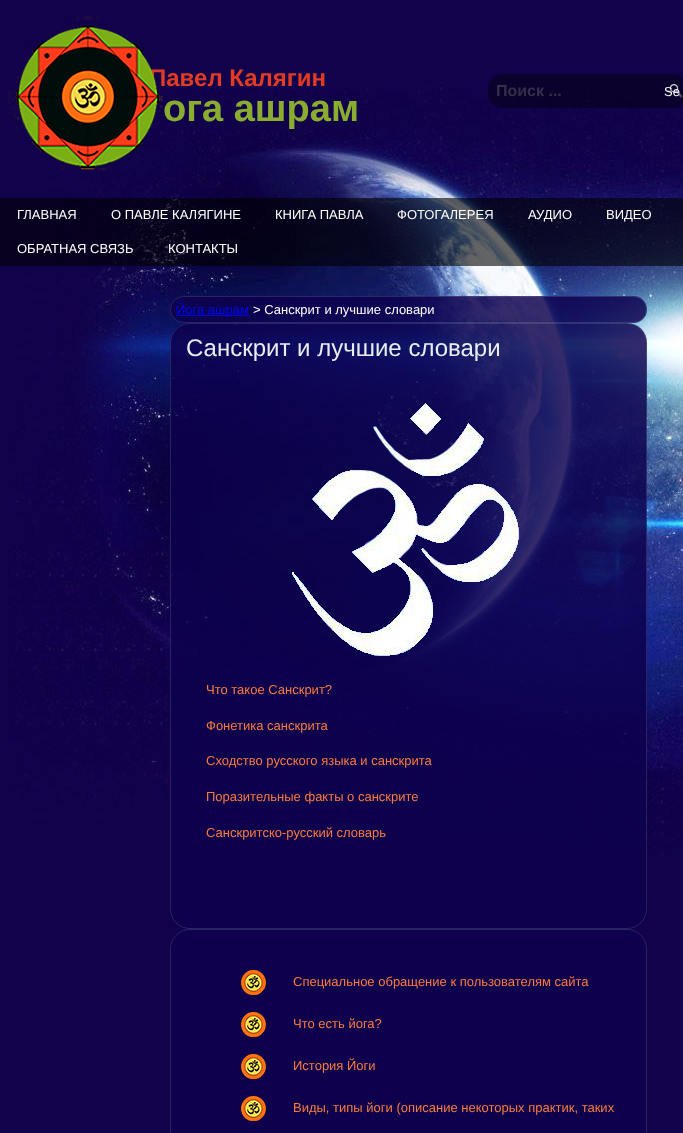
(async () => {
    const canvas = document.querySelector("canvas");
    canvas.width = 683;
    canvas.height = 1133;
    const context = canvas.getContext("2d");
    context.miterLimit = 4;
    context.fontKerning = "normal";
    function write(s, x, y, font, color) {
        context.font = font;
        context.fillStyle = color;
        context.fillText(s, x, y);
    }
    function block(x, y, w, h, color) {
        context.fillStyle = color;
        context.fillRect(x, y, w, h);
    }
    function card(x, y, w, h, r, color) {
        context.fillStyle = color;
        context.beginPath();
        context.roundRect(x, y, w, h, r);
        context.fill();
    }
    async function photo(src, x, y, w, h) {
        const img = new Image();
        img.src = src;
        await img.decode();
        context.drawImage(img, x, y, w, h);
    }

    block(0, 0, 683, 1133, "rgb(18, 2, 75)");
    await photo("media/1.png", 8, 83, 675, 773);
    write("Павел Калягин", 149, 86, "bold 24px Liberation Sans", "rgb(227, 59, 35)");
    await photo("media/2.png", 8, 16, 155, 155);
    card(488, 74, 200, 34, 15, "rgba(0, 0, 0, 0.4)");
    write("Поиск ...", 496, 96, "bold 16px Liberation Sans", "rgb(53, 48, 74)");
    await photo("media/3.png", 669, 84, 14, 14);
    write("Se", 664, 96, "13px Liberation Sans", "rgb(255, 255, 255)");
    write("ога ашрам", 163, 121, "bold 38px Liberation Sans", "rgb(138, 173, 48)");
    block(0, 198, 683, 68, "rgba(0, 0, 0, 0.6)");
    write("ГЛАВНАЯ", 17, 219, "13px Liberation Sans", "rgb(255, 255, 255)");
    write("О ПАВЛЕ КАЛЯГИНЕ", 111, 219, "13px Liberation Sans", "rgb(255, 255, 255)");
    write("КНИГА ПАВЛА", 275, 219, "13px Liberation Sans", "rgb(255, 255, 255)");
    write("ФОТОГАЛЕРЕЯ", 397, 219, "13px Liberation Sans", "rgb(255, 255, 255)");
    write("АУДИО", 528, 219, "13px Liberation Sans", "rgb(255, 255, 255)");
    write("ВИДЕО", 606, 219, "13px Liberation Sans", "rgb(255, 255, 255)");
    write("ОБРАТНАЯ СВЯЗЬ", 17, 253, "13px Liberation Sans", "rgb(255, 255, 255)");
    write("КОНТАКТЫ", 168, 253, "13px Liberation Sans", "rgb(255, 255, 255)");
    card(170, 296, 477, 27, 13.5, "rgba(13, 0, 77, 0.83)");
    context.beginPath();
    context.roundRect(170.5, 296.5, 476, 26, 13);
    context.strokeStyle = "rgba(156, 175, 196, 0.2)";
    context.stroke();
    block(176, 315, 73, 1, "rgb(0, 0, 238)");
    write("Йога ашрам", 176, 314, "13px Liberation Sans", "rgb(0, 0, 238)");
    write("> Санскрит и лучшие словари", 253, 314, "13px Liberation Sans", "rgb(255, 255, 255)");
    card(170, 323, 477, 606, 20, "rgba(13, 0, 77, 0.83)");
    context.beginPath();
    context.roundRect(170.5, 323.5, 476, 605, 19.5);
    context.stroke();
    write("Санскрит и лучшие словари", 186, 356, "24px Liberation Sans", "rgb(233, 237, 242)");
    await photo("media/4.png", 292, 403, 227, 253);
    write("Что такое Санскрит?", 206, 694, "13px Liberation Sans", "rgb(251, 124, 60)");
    write("Фонетика санскрита", 206, 730, "13px Liberation Sans", "rgb(251, 124, 60)");
    write("Сходство русского языка и санскрита", 206, 765, "13px Liberation Sans", "rgb(251, 124, 60)");
    write("Поразительные факты о санскрите", 206, 801, "13px Liberation Sans", "rgb(251, 124, 60)");
    write("Санскритско-русский словарь", 206, 837, "13px Liberation Sans", "rgb(251, 124, 60)");
    context.fillStyle = "rgb(14, 0, 77)";
    context.beginPath();
    context.roundRect(170.5, 929.5, 476, 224, 19.5);
    context.fill();
    context.strokeStyle = "rgb(42, 35, 101)";
    context.stroke();
    await photo("media/5.png", 241, 970, 25, 25);
    write("Специальное обращение к пользователям сайта", 293, 986, "13px Liberation Sans", "rgb(251, 124, 60)");
    await photo("media/5.png", 241, 1012, 25, 25);
    write("Что есть йога?", 293, 1028, "13px Liberation Sans", "rgb(251, 124, 60)");
    await photo("media/5.png", 241, 1054, 25, 25);
    write("История Йоги", 293, 1070, "13px Liberation Sans", "rgb(251, 124, 60)");
    await photo("media/5.png", 241, 1096, 25, 25);
    write("Виды, типы йоги (описание некоторых практик, таких", 293, 1112, "13px Liberation Sans", "rgb(251, 124, 60)");
})();
